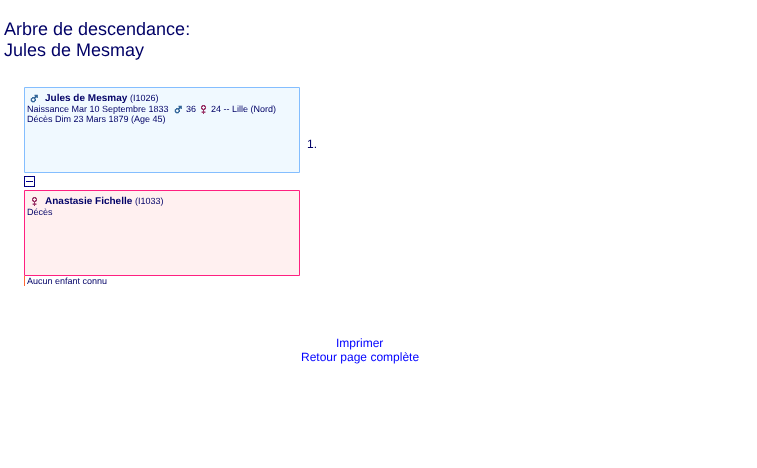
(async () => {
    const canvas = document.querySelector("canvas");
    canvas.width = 757;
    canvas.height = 468;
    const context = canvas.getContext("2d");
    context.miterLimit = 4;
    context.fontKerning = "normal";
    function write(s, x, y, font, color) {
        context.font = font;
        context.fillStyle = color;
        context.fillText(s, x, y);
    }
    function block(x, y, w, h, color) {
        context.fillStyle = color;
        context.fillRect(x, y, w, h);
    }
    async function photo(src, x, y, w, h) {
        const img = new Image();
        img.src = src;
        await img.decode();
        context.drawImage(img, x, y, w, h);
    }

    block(0, 0, 757, 468, "rgb(255, 255, 255)");
    write("Arbre de descendance:", 4, 35, "18px Liberation Sans", "rgb(0, 0, 102)");
    write("Jules de Mesmay", 4, 56, "18px Liberation Sans", "rgb(0, 0, 102)");
    context.fillStyle = "rgb(240, 249, 255)";
    context.beginPath();
    context.rect(24.5, 87.5, 275, 85);
    context.fill();
    context.strokeStyle = "rgb(132, 190, 255)";
    context.stroke();
    await photo("media/1.png", 30, 94, 8, 9);
    write("Jules de Mesmay", 45, 101, "bold 10px Liberation Sans", "rgb(0, 0, 102)");
    write("(I1026)", 130, 101, "9px Liberation Sans", "rgb(0, 0, 102)");
    write("Naissance Mar 10 Septembre 1833", 27, 112, "9px Liberation Sans", "rgb(0, 0, 102)");
    await photo("media/1.png", 174, 105, 8, 9);
    write("36", 186, 112, "9px Liberation Sans", "rgb(0, 0, 102)");
    await photo("media/2.png", 201, 105, 5, 9);
    write("24 -- Lille (Nord)", 211, 112, "9px Liberation Sans", "rgb(0, 0, 102)");
    write("Décès Dim 23 Mars 1879 (Age 45)", 27, 122, "9px Liberation Sans", "rgb(0, 0, 102)");
    write("1.", 307, 148, "12px Liberation Sans", "rgb(0, 0, 102)");
    await photo("media/3.png", 24, 176, 11, 11);
    block(24, 276, 1, 10, "rgb(255, 102, 51)");
    context.fillStyle = "rgb(255, 240, 240)";
    context.beginPath();
    context.rect(24.5, 190.5, 275, 85);
    context.fill();
    context.strokeStyle = "rgb(255, 32, 128)";
    context.stroke();
    await photo("media/4.png", 32, 197, 5, 9);
    write("Anastasie Fichelle", 45, 204, "bold 10px Liberation Sans", "rgb(0, 0, 102)");
    write("(I1033)", 135, 204, "9px Liberation Sans", "rgb(0, 0, 102)");
    write("Décès", 27, 215, "9px Liberation Sans", "rgb(0, 0, 102)");
    write("Aucun enfant connu", 27, 284, "9px Liberation Sans", "rgb(0, 0, 102)");
    write("Imprimer", 336, 347, "12px Liberation Sans", "rgb(0, 0, 255)");
    write("Retour page complète", 301, 361, "12px Liberation Sans", "rgb(0, 0, 255)");
})();
